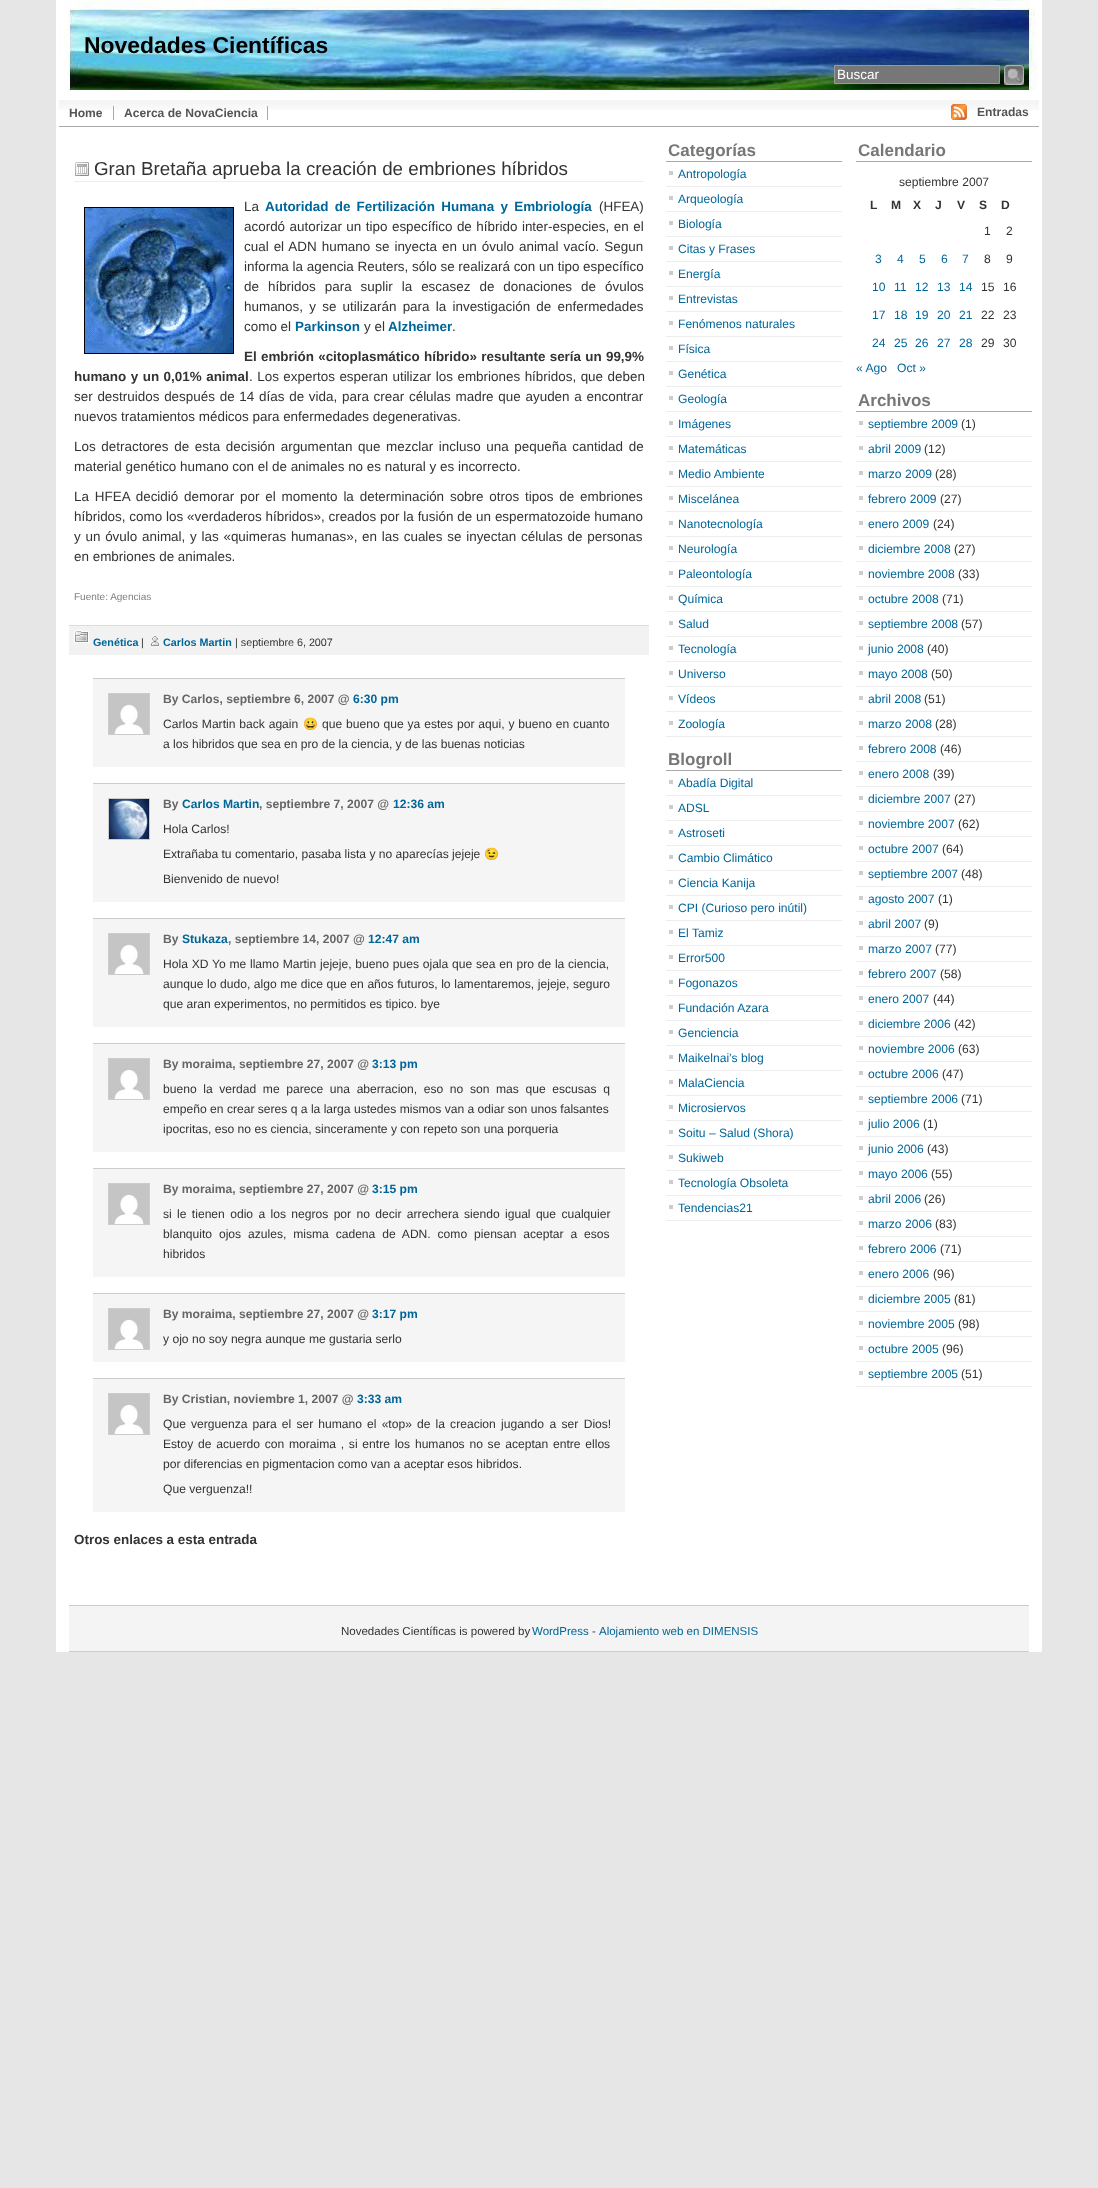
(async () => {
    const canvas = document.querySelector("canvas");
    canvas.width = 1098;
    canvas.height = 2188;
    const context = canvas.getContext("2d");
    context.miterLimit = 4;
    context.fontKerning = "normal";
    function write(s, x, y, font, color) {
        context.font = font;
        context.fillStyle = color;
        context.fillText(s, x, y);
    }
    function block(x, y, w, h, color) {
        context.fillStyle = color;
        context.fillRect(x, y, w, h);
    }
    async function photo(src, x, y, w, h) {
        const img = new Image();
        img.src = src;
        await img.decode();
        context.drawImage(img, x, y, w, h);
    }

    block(0, 0, 1098, 2188, "rgb(230, 230, 230)");
    block(56, 0, 986, 1652, "rgb(255, 255, 255)");
    await photo("media/1.png", 59, 0, 980, 90);
    write("Novedades Científicas", 84, 53, "bold 22.9px Liberation Sans", "rgb(0, 0, 0)");
    context.fillStyle = "rgb(119, 119, 119)";
    context.beginPath();
    context.rect(834.5, 65.5, 165, 18);
    context.fill();
    context.strokeStyle = "rgb(153, 153, 153)";
    context.stroke();
    write("Buscar", 837, 79, "13.5px Liberation Sans", "rgb(255, 255, 255)");
    await photo("media/2.png", 1004, 65, 20, 20);
    await photo("media/3.png", 59, 100, 980, 10);
    block(59, 126, 980, 1, "rgb(170, 170, 170)");
    write("Home", 69, 117, "bold 12.1px Liberation Sans", "rgb(85, 85, 85)");
    block(113, 106, 1, 14, "rgb(170, 170, 170)");
    write("Acerca de NovaCiencia", 124, 117, "bold 12.1px Liberation Sans", "rgb(85, 85, 85)");
    block(267, 106, 1, 14, "rgb(170, 170, 170)");
    await photo("media/4.png", 951, 104, 16, 16);
    write("Entradas", 977, 116, "bold 12.1px Liberation Sans", "rgb(85, 85, 85)");
    await photo("media/5.png", 75, 162, 14, 14);
    block(74, 181, 570, 1, "rgb(238, 238, 238)");
    write("Gran Bretaña aprueba la creación de embriones híbridos", 94, 175, "18.8px Liberation Sans", "rgb(51, 51, 51)");
    await photo("media/6.png", 84, 207, 150, 147);
    write("La", 244, 211, "13.45px Liberation Sans", "rgb(51, 51, 51)");
    context.wordSpacing = "2.5px";
    write("Autoridad de Fertilización Humana y Embriología", 265, 211, "bold 13.45px Liberation Sans", "rgb(0, 102, 153)");
    context.wordSpacing = "0px";
    write("(HFEA)", 599, 211, "13.45px Liberation Sans", "rgb(51, 51, 51)");
    context.wordSpacing = "0.75px";
    write("acordó autorizar un tipo específico de híbrido inter-especies, en el", 244, 231, "13.45px Liberation Sans", "rgb(51, 51, 51)");
    context.wordSpacing = "1.25px";
    write("cual el ADN humano se inyecta en un óvulo animal vacío. Segun", 244, 251, "13.45px Liberation Sans", "rgb(51, 51, 51)");
    context.wordSpacing = "0px";
    write("informa la agencia Reuters, sólo se realizará con un tipo específico", 244, 271, "13.45px Liberation Sans", "rgb(51, 51, 51)");
    context.wordSpacing = "5.25px";
    write("de híbridos para suplir la escasez de donaciones de óvulos", 244, 291, "13.45px Liberation Sans", "rgb(51, 51, 51)");
    context.wordSpacing = "2.5px";
    write("humanos, y se utilizarán para la investigación de enfermedades", 244, 311, "13.45px Liberation Sans", "rgb(51, 51, 51)");
    context.wordSpacing = "0px";
    write("como el", 244, 331, "13.45px Liberation Sans", "rgb(51, 51, 51)");
    write("Parkinson", 295, 331, "bold 13.45px Liberation Sans", "rgb(0, 102, 153)");
    write("y el", 364, 331, "13.45px Liberation Sans", "rgb(51, 51, 51)");
    write("Alzheimer", 388, 331, "bold 13.45px Liberation Sans", "rgb(0, 102, 153)");
    write(".", 452, 331, "13.45px Liberation Sans", "rgb(51, 51, 51)");
    context.wordSpacing = "0.5px";
    write("El embrión «citoplasmático híbrido» resultante sería un 99,9%", 244, 361, "bold 13.45px Liberation Sans", "rgb(51, 51, 51)");
    context.wordSpacing = "0.75px";
    write("humano y un 0,01% animal", 74, 381, "bold 13.45px Liberation Sans", "rgb(51, 51, 51)");
    write(". Los expertos esperan utilizar los embriones híbridos, que deben", 249, 381, "13.45px Liberation Sans", "rgb(51, 51, 51)");
    context.wordSpacing = "1px";
    write("ser destruidos después de 14 días de vida, para crear células madre que ayuden a encontrar", 74, 401, "13.45px Liberation Sans", "rgb(51, 51, 51)");
    context.wordSpacing = "0px";
    write("nuevos tratamientos médicos para enfermedades degenerativas.", 74, 421, "13.45px Liberation Sans", "rgb(51, 51, 51)");
    context.wordSpacing = "1.9px";
    write("Los detractores de esta decisión argumentan que mezclar incluso una pequeña cantidad de", 74, 451, "13.45px Liberation Sans", "rgb(51, 51, 51)");
    context.wordSpacing = "0px";
    write("material genético humano con el de animales no es natural y es incorrecto.", 74, 471, "13.45px Liberation Sans", "rgb(51, 51, 51)");
    context.wordSpacing = "2.1px";
    write("La HFEA decidió demorar por el momento la determinación sobre otros tipos de embriones", 74, 501, "13.45px Liberation Sans", "rgb(51, 51, 51)");
    context.wordSpacing = "0.1px";
    write("híbridos, como los «verdaderos híbridos», creados por la fusión de un espermatozoide humano", 74, 521, "13.45px Liberation Sans", "rgb(51, 51, 51)");
    context.wordSpacing = "1px";
    write("y un óvulo animal, y las «quimeras humanas», en las cuales se inyectan células de personas", 74, 541, "13.45px Liberation Sans", "rgb(51, 51, 51)");
    context.wordSpacing = "0px";
    write("en embriones de animales.", 74, 561, "13.45px Liberation Sans", "rgb(51, 51, 51)");
    write("Fuente: Agencias", 74, 600, "10px Liberation Sans", "rgb(128, 128, 128)");
    block(69, 626, 580, 29, "rgb(242, 242, 242)");
    block(69, 625, 580, 1, "rgb(221, 221, 221)");
    await photo("media/7.png", 74, 630, 15, 13);
    write("Genética", 93, 646, "bold 10.75px Liberation Sans", "rgb(0, 102, 153)");
    write("|", 141, 646, "10.75px Liberation Sans", "rgb(51, 51, 51)");
    await photo("media/8.png", 151, 636, 8, 10);
    write("Carlos Martin", 163, 646, "bold 10.75px Liberation Sans", "rgb(0, 102, 153)");
    write("| septiembre 6, 2007", 235, 646, "10.75px Liberation Sans", "rgb(51, 51, 51)");
    block(93, 679, 532, 88, "rgb(245, 245, 245)");
    context.strokeStyle = "rgb(204, 204, 204)";
    context.strokeRect(108.5, 693.5, 41, 41);
    await photo("media/9.png", 109, 694, 40, 40);
    block(93, 678, 532, 1, "rgb(204, 204, 204)");
    write("By Carlos, septiembre 6, 2007 @", 163, 703, "bold 12.1px Liberation Sans", "rgb(102, 102, 102)");
    write("6:30 pm", 353, 703, "bold 12.1px Liberation Sans", "rgb(0, 102, 153)");
    context.wordSpacing = "0.5px";
    write("Carlos Martin back again", 163, 728, "12.1px Liberation Sans", "rgb(51, 51, 51)");
    context.wordSpacing = "0px";
    write("😀", 303, 728, "12.1px Noto Color Emoji", "rgb(51, 51, 51)");
    context.wordSpacing = "0.5px";
    write("que bueno que ya estes por aqui, y bueno en cuanto", 322, 728, "12.1px Liberation Sans", "rgb(51, 51, 51)");
    context.wordSpacing = "0px";
    write("a los hibridos que sea en pro de la ciencia, y de las buenas noticias", 163, 748, "12.1px Liberation Sans", "rgb(51, 51, 51)");
    block(93, 784, 532, 118, "rgb(245, 245, 245)");
    context.strokeRect(108.5, 798.5, 41, 41);
    await photo("media/10.png", 109, 799, 40, 40);
    block(93, 783, 532, 1, "rgb(204, 204, 204)");
    write("By", 163, 808, "bold 12.1px Liberation Sans", "rgb(102, 102, 102)");
    write("Carlos Martin", 182, 808, "bold 12.1px Liberation Sans", "rgb(0, 102, 153)");
    write(", septiembre 7, 2007 @", 259, 808, "bold 12.1px Liberation Sans", "rgb(102, 102, 102)");
    write("12:36 am", 393, 808, "bold 12.1px Liberation Sans", "rgb(0, 102, 153)");
    write("Hola Carlos!", 163, 833, "12.1px Liberation Sans", "rgb(51, 51, 51)");
    write("Extrañaba tu comentario, pasaba lista y no aparecías jejeje", 163, 858, "12.1px Liberation Sans", "rgb(51, 51, 51)");
    write("😉", 484, 858, "12.1px Noto Color Emoji", "rgb(51, 51, 51)");
    write("Bienvenido de nuevo!", 163, 883, "12.1px Liberation Sans", "rgb(51, 51, 51)");
    block(93, 919, 532, 108, "rgb(245, 245, 245)");
    context.strokeRect(108.5, 933.5, 41, 41);
    await photo("media/9.png", 109, 934, 40, 40);
    block(93, 918, 532, 1, "rgb(204, 204, 204)");
    write("By", 163, 943, "bold 12.1px Liberation Sans", "rgb(102, 102, 102)");
    write("Stukaza", 182, 943, "bold 12.1px Liberation Sans", "rgb(0, 102, 153)");
    write(", septiembre 14, 2007 @", 228, 943, "bold 12.1px Liberation Sans", "rgb(102, 102, 102)");
    write("12:47 am", 368, 943, "bold 12.1px Liberation Sans", "rgb(0, 102, 153)");
    context.wordSpacing = "0.4px";
    write("Hola XD Yo me llamo Martin jejeje, bueno pues ojala que sea en pro de la ciencia,", 163, 968, "12.1px Liberation Sans", "rgb(51, 51, 51)");
    context.wordSpacing = "0.25px";
    write("aunque lo dudo, algo me dice que en años futuros, lo lamentaremos, jejeje, seguro", 163, 988, "12.1px Liberation Sans", "rgb(51, 51, 51)");
    context.wordSpacing = "0px";
    write("que aran experimentos, no permitidos es tipico. bye", 163, 1008, "12.1px Liberation Sans", "rgb(51, 51, 51)");
    block(93, 1044, 532, 108, "rgb(245, 245, 245)");
    context.strokeRect(108.5, 1058.5, 41, 41);
    await photo("media/9.png", 109, 1059, 40, 40);
    block(93, 1043, 532, 1, "rgb(204, 204, 204)");
    write("By moraima, septiembre 27, 2007 @", 163, 1068, "bold 12.1px Liberation Sans", "rgb(102, 102, 102)");
    write("3:13 pm", 372, 1068, "bold 12.1px Liberation Sans", "rgb(0, 102, 153)");
    context.wordSpacing = "3.25px";
    write("bueno la verdad me parece una aberracion, eso no son mas que escusas q", 163, 1093, "12.1px Liberation Sans", "rgb(51, 51, 51)");
    context.wordSpacing = "0px";
    write("empeño en crear seres q a la larga ustedes mismos van a odiar son unos falsantes", 163, 1113, "12.1px Liberation Sans", "rgb(51, 51, 51)");
    write("ipocritas, eso no es ciencia, sinceramente y con repeto son una porqueria", 163, 1133, "12.1px Liberation Sans", "rgb(51, 51, 51)");
    block(93, 1169, 532, 108, "rgb(245, 245, 245)");
    context.strokeRect(108.5, 1183.5, 41, 41);
    await photo("media/9.png", 109, 1184, 40, 40);
    block(93, 1168, 532, 1, "rgb(204, 204, 204)");
    write("By moraima, septiembre 27, 2007 @", 163, 1193, "bold 12.1px Liberation Sans", "rgb(102, 102, 102)");
    write("3:15 pm", 372, 1193, "bold 12.1px Liberation Sans", "rgb(0, 102, 153)");
    context.wordSpacing = "2px";
    write("si le tienen odio a los negros por no decir arrechera siendo igual que cualquier", 163, 1218, "12.1px Liberation Sans", "rgb(51, 51, 51)");
    context.wordSpacing = "3.5px";
    write("blanquito ojos azules, misma cadena de ADN. como piensan aceptar a esos", 163, 1238, "12.1px Liberation Sans", "rgb(51, 51, 51)");
    context.wordSpacing = "0px";
    write("hibridos", 163, 1258, "12.1px Liberation Sans", "rgb(51, 51, 51)");
    block(93, 1294, 532, 68, "rgb(245, 245, 245)");
    context.strokeRect(108.5, 1308.5, 41, 41);
    await photo("media/9.png", 109, 1309, 40, 40);
    block(93, 1293, 532, 1, "rgb(204, 204, 204)");
    write("By moraima, septiembre 27, 2007 @", 163, 1318, "bold 12.1px Liberation Sans", "rgb(102, 102, 102)");
    write("3:17 pm", 372, 1318, "bold 12.1px Liberation Sans", "rgb(0, 102, 153)");
    write("y ojo no soy negra aunque me gustaria serlo", 163, 1343, "12.1px Liberation Sans", "rgb(51, 51, 51)");
    block(93, 1379, 532, 133, "rgb(245, 245, 245)");
    context.strokeRect(108.5, 1393.5, 41, 41);
    await photo("media/9.png", 109, 1394, 40, 40);
    block(93, 1378, 532, 1, "rgb(204, 204, 204)");
    write("By Cristian, noviembre 1, 2007 @", 163, 1403, "bold 12.1px Liberation Sans", "rgb(102, 102, 102)");
    write("3:33 am", 357, 1403, "bold 12.1px Liberation Sans", "rgb(0, 102, 153)");
    context.wordSpacing = "1.75px";
    write("Que verguenza para el ser humano el «top» de la creacion", 163, 1428, "12.1px Liberation Sans", "rgb(51, 51, 51)");
    context.wordSpacing = "2px";
    write("jugando a ser Dios!", 501, 1428, "12.1px Liberation Sans", "rgb(51, 51, 51)");
    context.wordSpacing = "1.4px";
    write("Estoy de acuerdo con moraima , si entre los humanos no se aceptan entre ellos", 163, 1448, "12.1px Liberation Sans", "rgb(51, 51, 51)");
    context.wordSpacing = "0px";
    write("por diferencias en pigmentacion como van a aceptar esos hibridos.", 163, 1468, "12.1px Liberation Sans", "rgb(51, 51, 51)");
    write("Que verguenza!!", 163, 1493, "12.1px Liberation Sans", "rgb(51, 51, 51)");
    write("Otros enlaces a esta entrada", 74, 1544, "bold 13.45px Liberation Sans", "rgb(51, 51, 51)");
    block(666, 161, 176, 1, "rgb(170, 170, 170)");
    write("Categorías", 668, 156, "bold 17px Liberation Sans", "rgb(119, 119, 119)");
    block(669, 171, 4, 4, "rgb(204, 204, 204)");
    block(666, 186, 176, 1, "rgb(238, 238, 238)");
    write("Antropología", 678, 178, "12.1px Liberation Sans", "rgb(0, 102, 153)");
    block(669, 196, 4, 4, "rgb(204, 204, 204)");
    block(666, 211, 176, 1, "rgb(238, 238, 238)");
    write("Arqueología", 678, 203, "12.1px Liberation Sans", "rgb(0, 102, 153)");
    block(669, 221, 4, 4, "rgb(204, 204, 204)");
    block(666, 236, 176, 1, "rgb(238, 238, 238)");
    write("Biología", 678, 228, "12.1px Liberation Sans", "rgb(0, 102, 153)");
    block(669, 246, 4, 4, "rgb(204, 204, 204)");
    block(666, 261, 176, 1, "rgb(238, 238, 238)");
    write("Citas y Frases", 678, 253, "12.1px Liberation Sans", "rgb(0, 102, 153)");
    block(669, 271, 4, 4, "rgb(204, 204, 204)");
    block(666, 286, 176, 1, "rgb(238, 238, 238)");
    write("Energía", 678, 278, "12.1px Liberation Sans", "rgb(0, 102, 153)");
    block(669, 296, 4, 4, "rgb(204, 204, 204)");
    block(666, 311, 176, 1, "rgb(238, 238, 238)");
    write("Entrevistas", 678, 303, "12.1px Liberation Sans", "rgb(0, 102, 153)");
    block(669, 321, 4, 4, "rgb(204, 204, 204)");
    block(666, 336, 176, 1, "rgb(238, 238, 238)");
    write("Fenómenos naturales", 678, 328, "12.1px Liberation Sans", "rgb(0, 102, 153)");
    block(669, 346, 4, 4, "rgb(204, 204, 204)");
    block(666, 361, 176, 1, "rgb(238, 238, 238)");
    write("Física", 678, 353, "12.1px Liberation Sans", "rgb(0, 102, 153)");
    block(669, 371, 4, 4, "rgb(204, 204, 204)");
    block(666, 386, 176, 1, "rgb(238, 238, 238)");
    write("Genética", 678, 378, "12.1px Liberation Sans", "rgb(0, 102, 153)");
    block(669, 396, 4, 4, "rgb(204, 204, 204)");
    block(666, 411, 176, 1, "rgb(238, 238, 238)");
    write("Geología", 678, 403, "12.1px Liberation Sans", "rgb(0, 102, 153)");
    block(669, 421, 4, 4, "rgb(204, 204, 204)");
    block(666, 436, 176, 1, "rgb(238, 238, 238)");
    write("Imágenes", 678, 428, "12.1px Liberation Sans", "rgb(0, 102, 153)");
    block(669, 446, 4, 4, "rgb(204, 204, 204)");
    block(666, 461, 176, 1, "rgb(238, 238, 238)");
    write("Matemáticas", 678, 453, "12.1px Liberation Sans", "rgb(0, 102, 153)");
    block(669, 471, 4, 4, "rgb(204, 204, 204)");
    block(666, 486, 176, 1, "rgb(238, 238, 238)");
    write("Medio Ambiente", 678, 478, "12.1px Liberation Sans", "rgb(0, 102, 153)");
    block(669, 496, 4, 4, "rgb(204, 204, 204)");
    block(666, 511, 176, 1, "rgb(238, 238, 238)");
    write("Miscelánea", 678, 503, "12.1px Liberation Sans", "rgb(0, 102, 153)");
    block(669, 521, 4, 4, "rgb(204, 204, 204)");
    block(666, 536, 176, 1, "rgb(238, 238, 238)");
    write("Nanotecnología", 678, 528, "12.1px Liberation Sans", "rgb(0, 102, 153)");
    block(669, 546, 4, 4, "rgb(204, 204, 204)");
    block(666, 561, 176, 1, "rgb(238, 238, 238)");
    write("Neurología", 678, 553, "12.1px Liberation Sans", "rgb(0, 102, 153)");
    block(669, 571, 4, 4, "rgb(204, 204, 204)");
    block(666, 586, 176, 1, "rgb(238, 238, 238)");
    write("Paleontología", 678, 578, "12.1px Liberation Sans", "rgb(0, 102, 153)");
    block(669, 596, 4, 4, "rgb(204, 204, 204)");
    block(666, 611, 176, 1, "rgb(238, 238, 238)");
    write("Química", 678, 603, "12.1px Liberation Sans", "rgb(0, 102, 153)");
    block(669, 621, 4, 4, "rgb(204, 204, 204)");
    block(666, 636, 176, 1, "rgb(238, 238, 238)");
    write("Salud", 678, 628, "12.1px Liberation Sans", "rgb(0, 102, 153)");
    block(669, 646, 4, 4, "rgb(204, 204, 204)");
    block(666, 661, 176, 1, "rgb(238, 238, 238)");
    write("Tecnología", 678, 653, "12.1px Liberation Sans", "rgb(0, 102, 153)");
    block(669, 671, 4, 4, "rgb(204, 204, 204)");
    block(666, 686, 176, 1, "rgb(238, 238, 238)");
    write("Universo", 678, 678, "12.1px Liberation Sans", "rgb(0, 102, 153)");
    block(669, 696, 4, 4, "rgb(204, 204, 204)");
    block(666, 711, 176, 1, "rgb(238, 238, 238)");
    write("Vídeos", 678, 703, "12.1px Liberation Sans", "rgb(0, 102, 153)");
    block(669, 721, 4, 4, "rgb(204, 204, 204)");
    block(666, 736, 176, 1, "rgb(238, 238, 238)");
    write("Zoología", 678, 728, "12.1px Liberation Sans", "rgb(0, 102, 153)");
    block(666, 770, 176, 1, "rgb(170, 170, 170)");
    write("Blogroll", 668, 765, "bold 17px Liberation Sans", "rgb(119, 119, 119)");
    block(669, 780, 4, 4, "rgb(204, 204, 204)");
    block(666, 795, 176, 1, "rgb(238, 238, 238)");
    write("Abadía Digital", 678, 787, "12.1px Liberation Sans", "rgb(0, 102, 153)");
    block(669, 805, 4, 4, "rgb(204, 204, 204)");
    block(666, 820, 176, 1, "rgb(238, 238, 238)");
    write("ADSL", 678, 812, "12.1px Liberation Sans", "rgb(0, 102, 153)");
    block(669, 830, 4, 4, "rgb(204, 204, 204)");
    block(666, 845, 176, 1, "rgb(238, 238, 238)");
    write("Astroseti", 678, 837, "12.1px Liberation Sans", "rgb(0, 102, 153)");
    block(669, 855, 4, 4, "rgb(204, 204, 204)");
    block(666, 870, 176, 1, "rgb(238, 238, 238)");
    write("Cambio Climático", 678, 862, "12.1px Liberation Sans", "rgb(0, 102, 153)");
    block(669, 880, 4, 4, "rgb(204, 204, 204)");
    block(666, 895, 176, 1, "rgb(238, 238, 238)");
    write("Ciencia Kanija", 678, 887, "12.1px Liberation Sans", "rgb(0, 102, 153)");
    block(669, 905, 4, 4, "rgb(204, 204, 204)");
    block(666, 920, 176, 1, "rgb(238, 238, 238)");
    write("CPI (Curioso pero inútil)", 678, 912, "12.1px Liberation Sans", "rgb(0, 102, 153)");
    block(669, 930, 4, 4, "rgb(204, 204, 204)");
    block(666, 945, 176, 1, "rgb(238, 238, 238)");
    write("El Tamiz", 678, 937, "12.1px Liberation Sans", "rgb(0, 102, 153)");
    block(669, 955, 4, 4, "rgb(204, 204, 204)");
    block(666, 970, 176, 1, "rgb(238, 238, 238)");
    write("Error500", 678, 962, "12.1px Liberation Sans", "rgb(0, 102, 153)");
    block(669, 980, 4, 4, "rgb(204, 204, 204)");
    block(666, 995, 176, 1, "rgb(238, 238, 238)");
    write("Fogonazos", 678, 987, "12.1px Liberation Sans", "rgb(0, 102, 153)");
    block(669, 1005, 4, 4, "rgb(204, 204, 204)");
    block(666, 1020, 176, 1, "rgb(238, 238, 238)");
    write("Fundación Azara", 678, 1012, "12.1px Liberation Sans", "rgb(0, 102, 153)");
    block(669, 1030, 4, 4, "rgb(204, 204, 204)");
    block(666, 1045, 176, 1, "rgb(238, 238, 238)");
    write("Genciencia", 678, 1037, "12.1px Liberation Sans", "rgb(0, 102, 153)");
    block(669, 1055, 4, 4, "rgb(204, 204, 204)");
    block(666, 1070, 176, 1, "rgb(238, 238, 238)");
    write("Maikelnai’s blog", 678, 1062, "12.1px Liberation Sans", "rgb(0, 102, 153)");
    block(669, 1080, 4, 4, "rgb(204, 204, 204)");
    block(666, 1095, 176, 1, "rgb(238, 238, 238)");
    write("MalaCiencia", 678, 1087, "12.1px Liberation Sans", "rgb(0, 102, 153)");
    block(669, 1105, 4, 4, "rgb(204, 204, 204)");
    block(666, 1120, 176, 1, "rgb(238, 238, 238)");
    write("Microsiervos", 678, 1112, "12.1px Liberation Sans", "rgb(0, 102, 153)");
    block(669, 1130, 4, 4, "rgb(204, 204, 204)");
    block(666, 1145, 176, 1, "rgb(238, 238, 238)");
    write("Soitu – Salud (Shora)", 678, 1137, "12.1px Liberation Sans", "rgb(0, 102, 153)");
    block(669, 1155, 4, 4, "rgb(204, 204, 204)");
    block(666, 1170, 176, 1, "rgb(238, 238, 238)");
    write("Sukiweb", 678, 1162, "12.1px Liberation Sans", "rgb(0, 102, 153)");
    block(669, 1180, 4, 4, "rgb(204, 204, 204)");
    block(666, 1195, 176, 1, "rgb(238, 238, 238)");
    write("Tecnología Obsoleta", 678, 1187, "12.1px Liberation Sans", "rgb(0, 102, 153)");
    block(669, 1205, 4, 4, "rgb(204, 204, 204)");
    block(666, 1220, 176, 1, "rgb(238, 238, 238)");
    write("Tendencias21", 678, 1212, "12.1px Liberation Sans", "rgb(0, 102, 153)");
    block(856, 161, 176, 1, "rgb(170, 170, 170)");
    write("Calendario", 858, 156, "bold 17px Liberation Sans", "rgb(119, 119, 119)");
    write("septiembre 2007", 899, 186, "12.1px Liberation Sans", "rgb(51, 51, 51)");
    write("L", 870, 209, "bold 12.1px Liberation Sans", "rgb(51, 51, 51)");
    write("M", 891, 209, "bold 12.1px Liberation Sans", "rgb(51, 51, 51)");
    write("X", 913, 209, "bold 12.1px Liberation Sans", "rgb(51, 51, 51)");
    write("J", 935, 209, "bold 12.1px Liberation Sans", "rgb(51, 51, 51)");
    write("V", 957, 209, "bold 12.1px Liberation Sans", "rgb(51, 51, 51)");
    write("S", 979, 209, "bold 12.1px Liberation Sans", "rgb(51, 51, 51)");
    write("D", 1001, 209, "bold 12.1px Liberation Sans", "rgb(51, 51, 51)");
    write("1", 984, 235, "12.1px Liberation Sans", "rgb(51, 51, 51)");
    write("2", 1006, 235, "12.1px Liberation Sans", "rgb(51, 51, 51)");
    write("3", 875, 263, "12.1px Liberation Sans", "rgb(0, 102, 153)");
    write("4", 897, 263, "12.1px Liberation Sans", "rgb(0, 102, 153)");
    write("5", 919, 263, "12.1px Liberation Sans", "rgb(0, 102, 153)");
    write("6", 941, 263, "12.1px Liberation Sans", "rgb(0, 102, 153)");
    write("7", 962, 263, "12.1px Liberation Sans", "rgb(0, 102, 153)");
    write("8", 984, 263, "12.1px Liberation Sans", "rgb(51, 51, 51)");
    write("9", 1006, 263, "12.1px Liberation Sans", "rgb(51, 51, 51)");
    write("10", 872, 291, "12.1px Liberation Sans", "rgb(0, 102, 153)");
    write("11", 894, 291, "12.1px Liberation Sans", "rgb(0, 102, 153)");
    write("12", 915, 291, "12.1px Liberation Sans", "rgb(0, 102, 153)");
    write("13", 937, 291, "12.1px Liberation Sans", "rgb(0, 102, 153)");
    write("14", 959, 291, "12.1px Liberation Sans", "rgb(0, 102, 153)");
    write("15", 981, 291, "12.1px Liberation Sans", "rgb(51, 51, 51)");
    write("16", 1003, 291, "12.1px Liberation Sans", "rgb(51, 51, 51)");
    write("17", 872, 319, "12.1px Liberation Sans", "rgb(0, 102, 153)");
    write("18", 894, 319, "12.1px Liberation Sans", "rgb(0, 102, 153)");
    write("19", 915, 319, "12.1px Liberation Sans", "rgb(0, 102, 153)");
    write("20", 937, 319, "12.1px Liberation Sans", "rgb(0, 102, 153)");
    write("21", 959, 319, "12.1px Liberation Sans", "rgb(0, 102, 153)");
    write("22", 981, 319, "12.1px Liberation Sans", "rgb(51, 51, 51)");
    write("23", 1003, 319, "12.1px Liberation Sans", "rgb(51, 51, 51)");
    write("24", 872, 347, "12.1px Liberation Sans", "rgb(0, 102, 153)");
    write("25", 894, 347, "12.1px Liberation Sans", "rgb(0, 102, 153)");
    write("26", 915, 347, "12.1px Liberation Sans", "rgb(0, 102, 153)");
    write("27", 937, 347, "12.1px Liberation Sans", "rgb(0, 102, 153)");
    write("28", 959, 347, "12.1px Liberation Sans", "rgb(0, 102, 153)");
    write("29", 981, 347, "12.1px Liberation Sans", "rgb(51, 51, 51)");
    write("30", 1003, 347, "12.1px Liberation Sans", "rgb(51, 51, 51)");
    write("« Ago", 856, 372, "12.1px Liberation Sans", "rgb(0, 102, 153)");
    write("Oct »", 897, 372, "12.1px Liberation Sans", "rgb(0, 102, 153)");
    block(856, 411, 176, 1, "rgb(170, 170, 170)");
    write("Archivos", 858, 406, "bold 17px Liberation Sans", "rgb(119, 119, 119)");
    block(859, 421, 4, 4, "rgb(204, 204, 204)");
    block(856, 436, 176, 1, "rgb(238, 238, 238)");
    write("septiembre 2009", 868, 428, "12.1px Liberation Sans", "rgb(0, 102, 153)");
    write("(1)", 961, 428, "12.1px Liberation Sans", "rgb(51, 51, 51)");
    block(859, 446, 4, 4, "rgb(204, 204, 204)");
    block(856, 461, 176, 1, "rgb(238, 238, 238)");
    write("abril 2009", 868, 453, "12.1px Liberation Sans", "rgb(0, 102, 153)");
    write("(12)", 924, 453, "12.1px Liberation Sans", "rgb(51, 51, 51)");
    block(859, 471, 4, 4, "rgb(204, 204, 204)");
    block(856, 486, 176, 1, "rgb(238, 238, 238)");
    write("marzo 2009", 868, 478, "12.1px Liberation Sans", "rgb(0, 102, 153)");
    write("(28)", 935, 478, "12.1px Liberation Sans", "rgb(51, 51, 51)");
    block(859, 496, 4, 4, "rgb(204, 204, 204)");
    block(856, 511, 176, 1, "rgb(238, 238, 238)");
    write("febrero 2009", 868, 503, "12.1px Liberation Sans", "rgb(0, 102, 153)");
    write("(27)", 940, 503, "12.1px Liberation Sans", "rgb(51, 51, 51)");
    block(859, 521, 4, 4, "rgb(204, 204, 204)");
    block(856, 536, 176, 1, "rgb(238, 238, 238)");
    write("enero 2009", 868, 528, "12.1px Liberation Sans", "rgb(0, 102, 153)");
    write("(24)", 933, 528, "12.1px Liberation Sans", "rgb(51, 51, 51)");
    block(859, 546, 4, 4, "rgb(204, 204, 204)");
    block(856, 561, 176, 1, "rgb(238, 238, 238)");
    write("diciembre 2008", 868, 553, "12.1px Liberation Sans", "rgb(0, 102, 153)");
    write("(27)", 954, 553, "12.1px Liberation Sans", "rgb(51, 51, 51)");
    block(859, 571, 4, 4, "rgb(204, 204, 204)");
    block(856, 586, 176, 1, "rgb(238, 238, 238)");
    write("noviembre 2008", 868, 578, "12.1px Liberation Sans", "rgb(0, 102, 153)");
    write("(33)", 958, 578, "12.1px Liberation Sans", "rgb(51, 51, 51)");
    block(859, 596, 4, 4, "rgb(204, 204, 204)");
    block(856, 611, 176, 1, "rgb(238, 238, 238)");
    write("octubre 2008", 868, 603, "12.1px Liberation Sans", "rgb(0, 102, 153)");
    write("(71)", 942, 603, "12.1px Liberation Sans", "rgb(51, 51, 51)");
    block(859, 621, 4, 4, "rgb(204, 204, 204)");
    block(856, 636, 176, 1, "rgb(238, 238, 238)");
    write("septiembre 2008", 868, 628, "12.1px Liberation Sans", "rgb(0, 102, 153)");
    write("(57)", 961, 628, "12.1px Liberation Sans", "rgb(51, 51, 51)");
    block(859, 646, 4, 4, "rgb(204, 204, 204)");
    block(856, 661, 176, 1, "rgb(238, 238, 238)");
    write("junio 2008", 868, 653, "12.1px Liberation Sans", "rgb(0, 102, 153)");
    write("(40)", 927, 653, "12.1px Liberation Sans", "rgb(51, 51, 51)");
    block(859, 671, 4, 4, "rgb(204, 204, 204)");
    block(856, 686, 176, 1, "rgb(238, 238, 238)");
    write("mayo 2008", 868, 678, "12.1px Liberation Sans", "rgb(0, 102, 153)");
    write("(50)", 931, 678, "12.1px Liberation Sans", "rgb(51, 51, 51)");
    block(859, 696, 4, 4, "rgb(204, 204, 204)");
    block(856, 711, 176, 1, "rgb(238, 238, 238)");
    write("abril 2008", 868, 703, "12.1px Liberation Sans", "rgb(0, 102, 153)");
    write("(51)", 924, 703, "12.1px Liberation Sans", "rgb(51, 51, 51)");
    block(859, 721, 4, 4, "rgb(204, 204, 204)");
    block(856, 736, 176, 1, "rgb(238, 238, 238)");
    write("marzo 2008", 868, 728, "12.1px Liberation Sans", "rgb(0, 102, 153)");
    write("(28)", 935, 728, "12.1px Liberation Sans", "rgb(51, 51, 51)");
    block(859, 746, 4, 4, "rgb(204, 204, 204)");
    block(856, 761, 176, 1, "rgb(238, 238, 238)");
    write("febrero 2008", 868, 753, "12.1px Liberation Sans", "rgb(0, 102, 153)");
    write("(46)", 940, 753, "12.1px Liberation Sans", "rgb(51, 51, 51)");
    block(859, 771, 4, 4, "rgb(204, 204, 204)");
    block(856, 786, 176, 1, "rgb(238, 238, 238)");
    write("enero 2008", 868, 778, "12.1px Liberation Sans", "rgb(0, 102, 153)");
    write("(39)", 933, 778, "12.1px Liberation Sans", "rgb(51, 51, 51)");
    block(859, 796, 4, 4, "rgb(204, 204, 204)");
    block(856, 811, 176, 1, "rgb(238, 238, 238)");
    write("diciembre 2007", 868, 803, "12.1px Liberation Sans", "rgb(0, 102, 153)");
    write("(27)", 954, 803, "12.1px Liberation Sans", "rgb(51, 51, 51)");
    block(859, 821, 4, 4, "rgb(204, 204, 204)");
    block(856, 836, 176, 1, "rgb(238, 238, 238)");
    write("noviembre 2007", 868, 828, "12.1px Liberation Sans", "rgb(0, 102, 153)");
    write("(62)", 958, 828, "12.1px Liberation Sans", "rgb(51, 51, 51)");
    block(859, 846, 4, 4, "rgb(204, 204, 204)");
    block(856, 861, 176, 1, "rgb(238, 238, 238)");
    write("octubre 2007", 868, 853, "12.1px Liberation Sans", "rgb(0, 102, 153)");
    write("(64)", 942, 853, "12.1px Liberation Sans", "rgb(51, 51, 51)");
    block(859, 871, 4, 4, "rgb(204, 204, 204)");
    block(856, 886, 176, 1, "rgb(238, 238, 238)");
    write("septiembre 2007", 868, 878, "12.1px Liberation Sans", "rgb(0, 102, 153)");
    write("(48)", 961, 878, "12.1px Liberation Sans", "rgb(51, 51, 51)");
    block(859, 896, 4, 4, "rgb(204, 204, 204)");
    block(856, 911, 176, 1, "rgb(238, 238, 238)");
    write("agosto 2007", 868, 903, "12.1px Liberation Sans", "rgb(0, 102, 153)");
    write("(1)", 938, 903, "12.1px Liberation Sans", "rgb(51, 51, 51)");
    block(859, 921, 4, 4, "rgb(204, 204, 204)");
    block(856, 936, 176, 1, "rgb(238, 238, 238)");
    write("abril 2007", 868, 928, "12.1px Liberation Sans", "rgb(0, 102, 153)");
    write("(9)", 924, 928, "12.1px Liberation Sans", "rgb(51, 51, 51)");
    block(859, 946, 4, 4, "rgb(204, 204, 204)");
    block(856, 961, 176, 1, "rgb(238, 238, 238)");
    write("marzo 2007", 868, 953, "12.1px Liberation Sans", "rgb(0, 102, 153)");
    write("(77)", 935, 953, "12.1px Liberation Sans", "rgb(51, 51, 51)");
    block(859, 971, 4, 4, "rgb(204, 204, 204)");
    block(856, 986, 176, 1, "rgb(238, 238, 238)");
    write("febrero 2007", 868, 978, "12.1px Liberation Sans", "rgb(0, 102, 153)");
    write("(58)", 940, 978, "12.1px Liberation Sans", "rgb(51, 51, 51)");
    block(859, 996, 4, 4, "rgb(204, 204, 204)");
    block(856, 1011, 176, 1, "rgb(238, 238, 238)");
    write("enero 2007", 868, 1003, "12.1px Liberation Sans", "rgb(0, 102, 153)");
    write("(44)", 933, 1003, "12.1px Liberation Sans", "rgb(51, 51, 51)");
    block(859, 1021, 4, 4, "rgb(204, 204, 204)");
    block(856, 1036, 176, 1, "rgb(238, 238, 238)");
    write("diciembre 2006", 868, 1028, "12.1px Liberation Sans", "rgb(0, 102, 153)");
    write("(42)", 954, 1028, "12.1px Liberation Sans", "rgb(51, 51, 51)");
    block(859, 1046, 4, 4, "rgb(204, 204, 204)");
    block(856, 1061, 176, 1, "rgb(238, 238, 238)");
    write("noviembre 2006", 868, 1053, "12.1px Liberation Sans", "rgb(0, 102, 153)");
    write("(63)", 958, 1053, "12.1px Liberation Sans", "rgb(51, 51, 51)");
    block(859, 1071, 4, 4, "rgb(204, 204, 204)");
    block(856, 1086, 176, 1, "rgb(238, 238, 238)");
    write("octubre 2006", 868, 1078, "12.1px Liberation Sans", "rgb(0, 102, 153)");
    write("(47)", 942, 1078, "12.1px Liberation Sans", "rgb(51, 51, 51)");
    block(859, 1096, 4, 4, "rgb(204, 204, 204)");
    block(856, 1111, 176, 1, "rgb(238, 238, 238)");
    write("septiembre 2006", 868, 1103, "12.1px Liberation Sans", "rgb(0, 102, 153)");
    write("(71)", 961, 1103, "12.1px Liberation Sans", "rgb(51, 51, 51)");
    block(859, 1121, 4, 4, "rgb(204, 204, 204)");
    block(856, 1136, 176, 1, "rgb(238, 238, 238)");
    write("julio 2006", 868, 1128, "12.1px Liberation Sans", "rgb(0, 102, 153)");
    write("(1)", 923, 1128, "12.1px Liberation Sans", "rgb(51, 51, 51)");
    block(859, 1146, 4, 4, "rgb(204, 204, 204)");
    block(856, 1161, 176, 1, "rgb(238, 238, 238)");
    write("junio 2006", 868, 1153, "12.1px Liberation Sans", "rgb(0, 102, 153)");
    write("(43)", 927, 1153, "12.1px Liberation Sans", "rgb(51, 51, 51)");
    block(859, 1171, 4, 4, "rgb(204, 204, 204)");
    block(856, 1186, 176, 1, "rgb(238, 238, 238)");
    write("mayo 2006", 868, 1178, "12.1px Liberation Sans", "rgb(0, 102, 153)");
    write("(55)", 931, 1178, "12.1px Liberation Sans", "rgb(51, 51, 51)");
    block(859, 1196, 4, 4, "rgb(204, 204, 204)");
    block(856, 1211, 176, 1, "rgb(238, 238, 238)");
    write("abril 2006", 868, 1203, "12.1px Liberation Sans", "rgb(0, 102, 153)");
    write("(26)", 924, 1203, "12.1px Liberation Sans", "rgb(51, 51, 51)");
    block(859, 1221, 4, 4, "rgb(204, 204, 204)");
    block(856, 1236, 176, 1, "rgb(238, 238, 238)");
    write("marzo 2006", 868, 1228, "12.1px Liberation Sans", "rgb(0, 102, 153)");
    write("(83)", 935, 1228, "12.1px Liberation Sans", "rgb(51, 51, 51)");
    block(859, 1246, 4, 4, "rgb(204, 204, 204)");
    block(856, 1261, 176, 1, "rgb(238, 238, 238)");
    write("febrero 2006", 868, 1253, "12.1px Liberation Sans", "rgb(0, 102, 153)");
    write("(71)", 940, 1253, "12.1px Liberation Sans", "rgb(51, 51, 51)");
    block(859, 1271, 4, 4, "rgb(204, 204, 204)");
    block(856, 1286, 176, 1, "rgb(238, 238, 238)");
    write("enero 2006", 868, 1278, "12.1px Liberation Sans", "rgb(0, 102, 153)");
    write("(96)", 933, 1278, "12.1px Liberation Sans", "rgb(51, 51, 51)");
    block(859, 1296, 4, 4, "rgb(204, 204, 204)");
    block(856, 1311, 176, 1, "rgb(238, 238, 238)");
    write("diciembre 2005", 868, 1303, "12.1px Liberation Sans", "rgb(0, 102, 153)");
    write("(81)", 954, 1303, "12.1px Liberation Sans", "rgb(51, 51, 51)");
    block(859, 1321, 4, 4, "rgb(204, 204, 204)");
    block(856, 1336, 176, 1, "rgb(238, 238, 238)");
    write("noviembre 2005", 868, 1328, "12.1px Liberation Sans", "rgb(0, 102, 153)");
    write("(98)", 958, 1328, "12.1px Liberation Sans", "rgb(51, 51, 51)");
    block(859, 1346, 4, 4, "rgb(204, 204, 204)");
    block(856, 1361, 176, 1, "rgb(238, 238, 238)");
    write("octubre 2005", 868, 1353, "12.1px Liberation Sans", "rgb(0, 102, 153)");
    write("(96)", 942, 1353, "12.1px Liberation Sans", "rgb(51, 51, 51)");
    block(859, 1371, 4, 4, "rgb(204, 204, 204)");
    block(856, 1386, 176, 1, "rgb(238, 238, 238)");
    write("septiembre 2005", 868, 1378, "12.1px Liberation Sans", "rgb(0, 102, 153)");
    write("(51)", 961, 1378, "12.1px Liberation Sans", "rgb(51, 51, 51)");
    block(69, 1606, 960, 45, "rgb(244, 244, 244)");
    block(69, 1605, 960, 1, "rgb(204, 204, 204)");
    block(69, 1651, 960, 1, "rgb(204, 204, 204)");
    write("Novedades Científicas is powered by", 341, 1635, "11.5px Liberation Sans", "rgb(51, 51, 51)");
    write("WordPress", 532, 1635, "11.5px Liberation Sans", "rgb(0, 102, 153)");
    write("-", 592, 1635, "11.5px Liberation Sans", "rgb(51, 51, 51)");
    write("Alojamiento web en DIMENSIS", 599, 1635, "11.5px Liberation Sans", "rgb(0, 102, 153)");
})();
